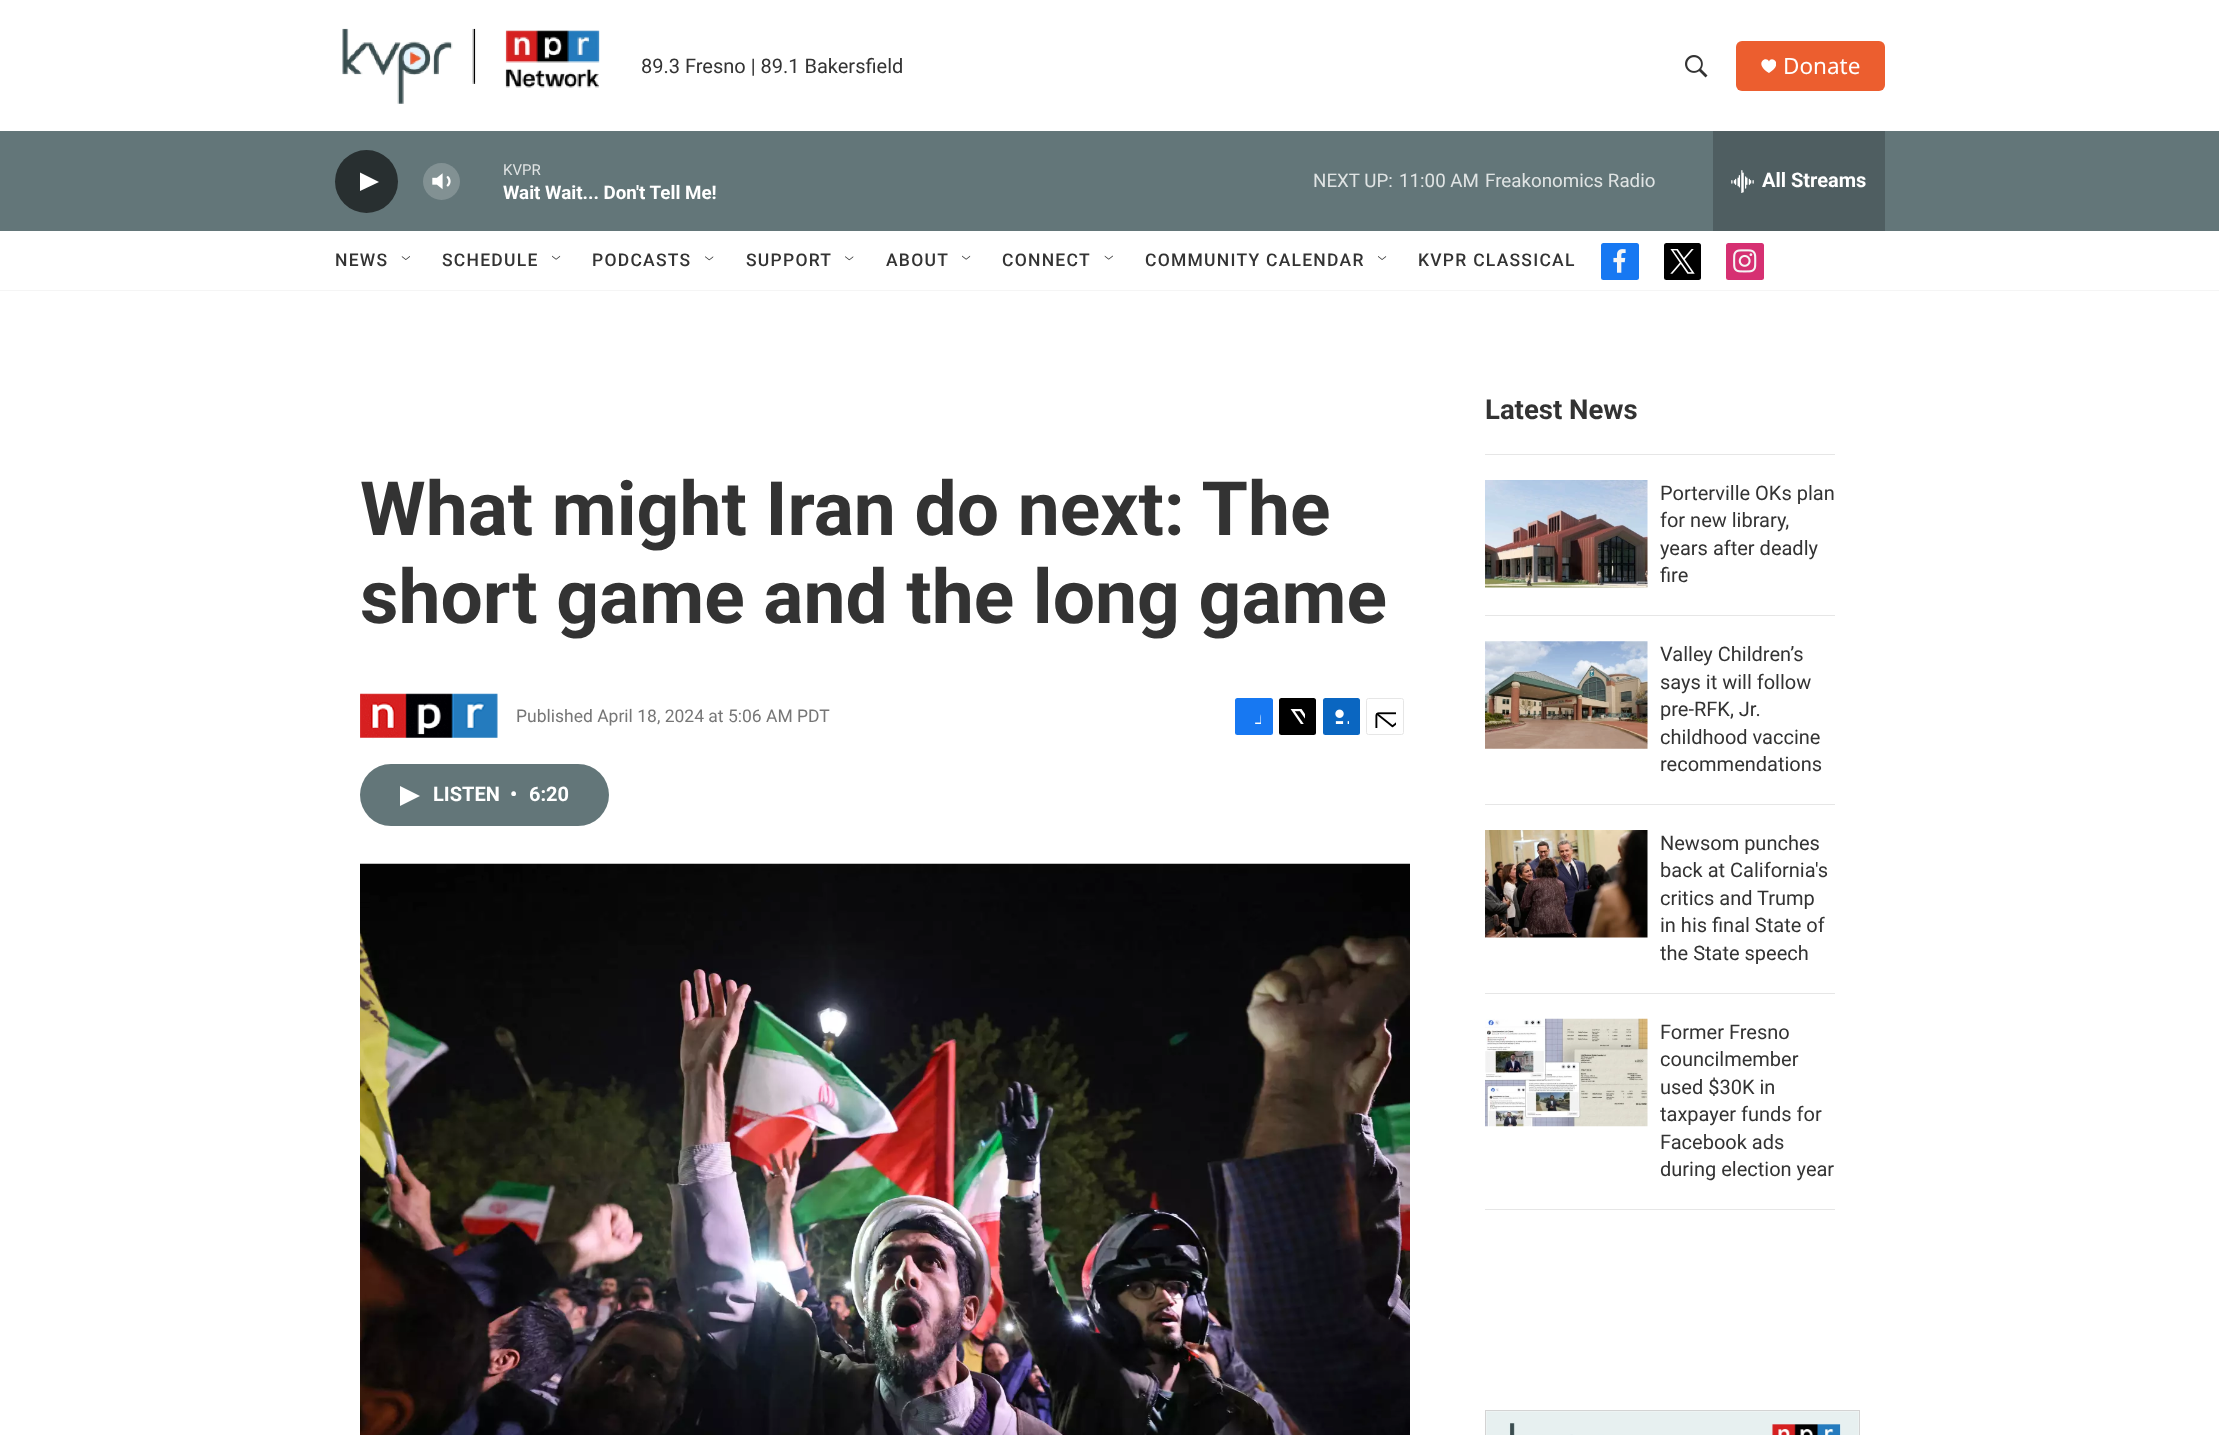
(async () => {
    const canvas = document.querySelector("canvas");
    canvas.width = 2219;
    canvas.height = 1435;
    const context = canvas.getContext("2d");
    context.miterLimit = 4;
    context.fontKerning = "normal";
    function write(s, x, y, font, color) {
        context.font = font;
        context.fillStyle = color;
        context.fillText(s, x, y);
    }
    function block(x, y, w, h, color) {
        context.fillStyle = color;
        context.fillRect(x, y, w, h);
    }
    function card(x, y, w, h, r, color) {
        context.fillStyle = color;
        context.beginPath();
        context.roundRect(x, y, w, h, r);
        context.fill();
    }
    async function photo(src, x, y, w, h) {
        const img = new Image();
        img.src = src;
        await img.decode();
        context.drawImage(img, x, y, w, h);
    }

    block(0, 0, 2219, 1435, "rgb(255, 255, 255)");
    block(0, 290, 2219, 1, "rgb(245, 245, 245)");
    await photo("media/1.png", 342, 28, 258, 76);
    write("89.3 Fresno | 89.1 Bakersfield", 641, 73, "20px 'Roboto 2'", "rgb(51, 51, 51)");
    await photo("media/2.png", 1685, 55, 23, 23);
    card(1736, 41, 149, 50, 6, "rgb(236, 94, 47)");
    context.save();
    context.beginPath();
    context.rect(1761, 59, 15, 15);
    context.clip();
    context.fillStyle = "rgb(255, 255, 255)";
    context.beginPath();
    context.moveTo(1769, 61.5);
    context.bezierCurveTo(1766.5, 55, 1753, 63.5, 1769, 73);
    context.bezierCurveTo(1784.5, 63.5, 1771, 55, 1769, 61.5);
    context.closePath();
    context.fill();
    context.restore();
    write("Donate", 1783, 74, "22.5px Noto Sans", "rgb(255, 255, 255)");
    block(0, 131, 2219, 100, "rgb(99, 118, 121)");
    context.fillStyle = "rgb(40, 47, 48)";
    context.beginPath();
    context.arc(366.5, 181.5, 31.5, 0, Math.PI * 2);
    context.fill();
    context.fillStyle = "rgb(255, 255, 255)";
    context.beginPath();
    context.moveTo(360, 172.5);
    context.lineTo(379, 182);
    context.lineTo(360, 191);
    context.closePath();
    context.fill();
    await photo("media/3.png", 432, 173, 19, 17);
    context.fillStyle = "rgba(255, 255, 255, 0.2)";
    context.beginPath();
    context.arc(441.5, 181.5, 18.5, 0, Math.PI * 2);
    context.fill();
    write("KVPR", 503, 175, "15px 'Roboto 2'", "rgb(224, 228, 228)");
    write("Wait Wait... Don't Tell Me!", 503, 199, "bold 18.75px 'Roboto 2'", "rgb(255, 255, 255)");
    write("NEXT UP:", 1313, 187, "18.75px 'Roboto 2'", "rgb(224, 228, 228)");
    write("11:00 AM", 1399, 187, "18.75px 'Roboto 2'", "rgb(224, 228, 228)");
    write("Freakonomics Radio", 1485, 187, "18.75px 'Roboto 2'", "rgb(224, 228, 228)");
    block(1713, 131, 172, 100, "rgb(79, 94, 97)");
    await photo("media/4.png", 1731, 170, 23, 23);
    write("All Streams", 1762, 187, "bold 20px 'Roboto 2'", "rgb(255, 255, 255)");
    context.letterSpacing = "1.25px";
    write("NEWS", 335, 266, "500 17.5px Roboto", "rgb(51, 51, 51)");
    await photo("media/5.png", 401, 256, 9, 4);
    write("SCHEDULE", 442, 266, "500 17.5px Roboto", "rgb(51, 51, 51)");
    await photo("media/6.png", 552, 255, 9, 5);
    write("PODCASTS", 592, 266, "500 17.5px Roboto", "rgb(51, 51, 51)");
    await photo("media/7.png", 705, 256, 9, 5);
    write("SUPPORT", 746, 266, "500 17.5px Roboto", "rgb(51, 51, 51)");
    await photo("media/8.png", 845, 256, 9, 5);
    write("ABOUT", 886, 266, "500 17.5px Roboto", "rgb(51, 51, 51)");
    await photo("media/9.png", 962, 255, 9, 5);
    write("CONNECT", 1002, 266, "500 17.5px Roboto", "rgb(51, 51, 51)");
    await photo("media/10.png", 1104, 255, 9, 5);
    write("COMMUNITY CALENDAR", 1145, 266, "500 17.5px Roboto", "rgb(51, 51, 51)");
    await photo("media/11.png", 1378, 256, 9, 4);
    write("KVPR CLASSICAL", 1418, 266, "500 17.5px Roboto", "rgb(51, 51, 51)");
    card(1601, 243, 38, 37, 2.5, "rgb(23, 120, 242)");
    await photo("media/12.png", 1613, 249, 13, 24);
    card(1664, 243, 37, 37, 2.5, "rgb(0, 0, 0)");
    await photo("media/13.png", 1670, 249, 25, 25);
    card(1726, 243, 38, 37, 2.5, "rgb(214, 48, 114)");
    await photo("media/14.png", 1733, 249, 24, 24);
    context.letterSpacing = "0px";
    write("What might Iran do next: The", 360, 535, "bold 75px Roboto", "rgb(51, 51, 51)");
    write("short game and the long game", 360, 623, "bold 75px Roboto", "rgb(51, 51, 51)");
    await photo("media/15.png", 360, 693, 138, 46);
    write("Published April 18, 2024 at 5:06 AM PDT", 516, 722, "17.5px Roboto", "rgb(118, 118, 118)");
    card(1235, 698, 38, 37, 2.5, "rgb(23, 120, 242)");
    await photo("media/16.png", 1255, 714, 6, 10);
    card(1279, 698, 37, 37, 2.5, "rgb(0, 0, 0)");
    await photo("media/17.png", 1290, 709, 15, 15);
    card(1323, 698, 37, 37, 2.5, "rgb(10, 102, 193)");
    await photo("media/18.png", 1335, 709, 14, 15);
    context.beginPath();
    context.roundRect(1366.5, 698.5, 37, 36, 2);
    context.strokeStyle = "rgb(230, 230, 230)";
    context.stroke();
    await photo("media/19.png", 1375, 712, 21, 16);
    card(360, 764, 249, 62, 31, "rgb(99, 118, 121)");
    context.fillStyle = "rgb(255, 255, 255)";
    context.beginPath();
    context.moveTo(400, 786);
    context.lineTo(420, 796);
    context.lineTo(400, 806);
    context.closePath();
    context.fill();
    write("LISTEN", 433, 801, "bold 20px 'Roboto 2'", "rgb(255, 255, 255)");
    write("•", 510, 801, "bold 20px 'Roboto 2'", "rgb(255, 255, 255)");
    write("6:20", 529, 801, "bold 20px 'Roboto 2'", "rgb(255, 255, 255)");
    await photo("media/20.png", 360, 863, 1050, 572);
    block(1485, 454, 350, 1, "rgb(230, 230, 230)");
    write("Latest News", 1485, 419, "bold 27.5px Roboto", "rgb(51, 51, 51)");
    block(1485, 615, 350, 1, "rgb(230, 230, 230)");
    await photo("media/21.png", 1485, 480, 163, 108);
    write("Porterville OKs plan", 1660, 500, "20px 'Roboto 2'", "rgb(51, 51, 51)");
    write("for new library,", 1660, 527, "20px 'Roboto 2'", "rgb(51, 51, 51)");
    write("years after deadly", 1660, 555, "20px 'Roboto 2'", "rgb(51, 51, 51)");
    write("fire", 1660, 582, "20px 'Roboto 2'", "rgb(51, 51, 51)");
    block(1485, 804, 350, 1, "rgb(230, 230, 230)");
    await photo("media/22.png", 1485, 641, 163, 108);
    write("Valley Children’s", 1660, 661, "20px 'Roboto 2'", "rgb(51, 51, 51)");
    write("says it will follow", 1660, 689, "20px 'Roboto 2'", "rgb(51, 51, 51)");
    write("pre-RFK, Jr.", 1660, 716, "20px 'Roboto 2'", "rgb(51, 51, 51)");
    write("childhood vaccine", 1660, 744, "20px 'Roboto 2'", "rgb(51, 51, 51)");
    write("recommendations", 1660, 771, "20px 'Roboto 2'", "rgb(51, 51, 51)");
    block(1485, 993, 350, 1, "rgb(230, 230, 230)");
    await photo("media/23.png", 1485, 830, 163, 108);
    write("Newsom punches", 1660, 850, "20px 'Roboto 2'", "rgb(51, 51, 51)");
    write("back at California's", 1660, 877, "20px 'Roboto 2'", "rgb(51, 51, 51)");
    write("critics and Trump", 1660, 905, "20px 'Roboto 2'", "rgb(51, 51, 51)");
    write("in his final State of", 1660, 932, "20px 'Roboto 2'", "rgb(51, 51, 51)");
    write("the State speech", 1660, 960, "20px 'Roboto 2'", "rgb(51, 51, 51)");
    block(1485, 1209, 350, 1, "rgb(230, 230, 230)");
    await photo("media/24.png", 1485, 1018, 163, 109);
    write("Former Fresno", 1660, 1039, "20px 'Roboto 2'", "rgb(51, 51, 51)");
    write("councilmember", 1660, 1066, "20px 'Roboto 2'", "rgb(51, 51, 51)");
    write("used $30K in", 1660, 1094, "20px 'Roboto 2'", "rgb(51, 51, 51)");
    write("taxpayer funds for", 1660, 1121, "20px 'Roboto 2'", "rgb(51, 51, 51)");
    write("Facebook ads", 1660, 1149, "20px 'Roboto 2'", "rgb(51, 51, 51)");
    write("during election year", 1660, 1176, "20px 'Roboto 2'", "rgb(51, 51, 51)");
    context.strokeStyle = "rgb(211, 211, 211)";
    context.strokeRect(1485.5, 1410.5, 374, 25);
    await photo("media/25.png", 1486, 1411, 373, 24);
})();
